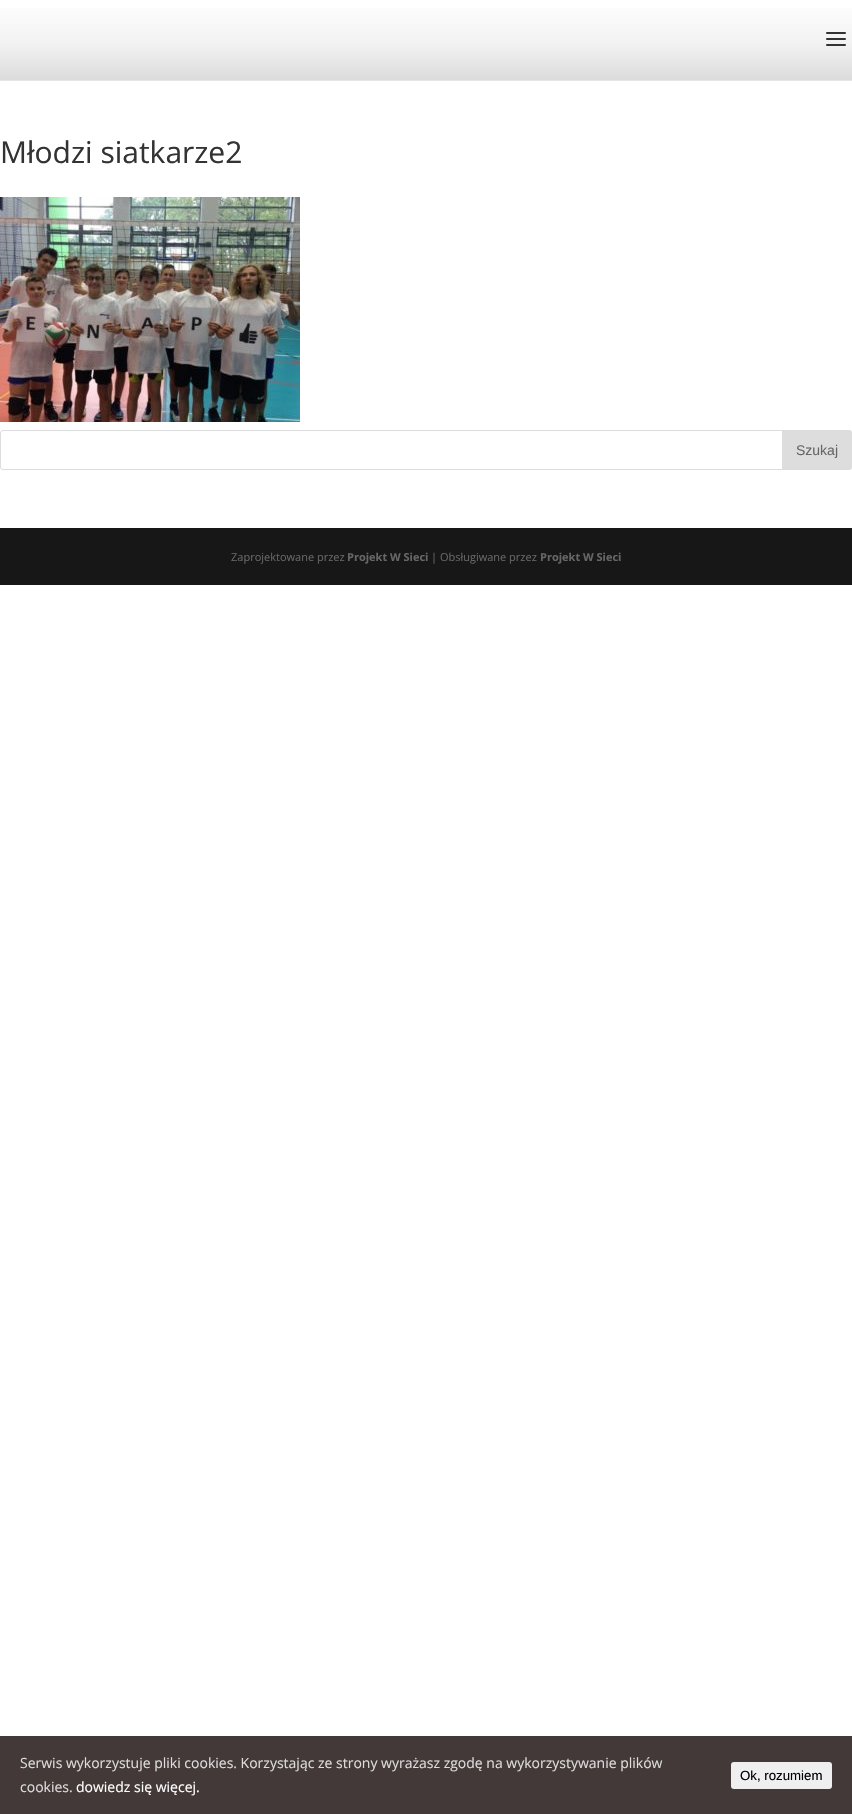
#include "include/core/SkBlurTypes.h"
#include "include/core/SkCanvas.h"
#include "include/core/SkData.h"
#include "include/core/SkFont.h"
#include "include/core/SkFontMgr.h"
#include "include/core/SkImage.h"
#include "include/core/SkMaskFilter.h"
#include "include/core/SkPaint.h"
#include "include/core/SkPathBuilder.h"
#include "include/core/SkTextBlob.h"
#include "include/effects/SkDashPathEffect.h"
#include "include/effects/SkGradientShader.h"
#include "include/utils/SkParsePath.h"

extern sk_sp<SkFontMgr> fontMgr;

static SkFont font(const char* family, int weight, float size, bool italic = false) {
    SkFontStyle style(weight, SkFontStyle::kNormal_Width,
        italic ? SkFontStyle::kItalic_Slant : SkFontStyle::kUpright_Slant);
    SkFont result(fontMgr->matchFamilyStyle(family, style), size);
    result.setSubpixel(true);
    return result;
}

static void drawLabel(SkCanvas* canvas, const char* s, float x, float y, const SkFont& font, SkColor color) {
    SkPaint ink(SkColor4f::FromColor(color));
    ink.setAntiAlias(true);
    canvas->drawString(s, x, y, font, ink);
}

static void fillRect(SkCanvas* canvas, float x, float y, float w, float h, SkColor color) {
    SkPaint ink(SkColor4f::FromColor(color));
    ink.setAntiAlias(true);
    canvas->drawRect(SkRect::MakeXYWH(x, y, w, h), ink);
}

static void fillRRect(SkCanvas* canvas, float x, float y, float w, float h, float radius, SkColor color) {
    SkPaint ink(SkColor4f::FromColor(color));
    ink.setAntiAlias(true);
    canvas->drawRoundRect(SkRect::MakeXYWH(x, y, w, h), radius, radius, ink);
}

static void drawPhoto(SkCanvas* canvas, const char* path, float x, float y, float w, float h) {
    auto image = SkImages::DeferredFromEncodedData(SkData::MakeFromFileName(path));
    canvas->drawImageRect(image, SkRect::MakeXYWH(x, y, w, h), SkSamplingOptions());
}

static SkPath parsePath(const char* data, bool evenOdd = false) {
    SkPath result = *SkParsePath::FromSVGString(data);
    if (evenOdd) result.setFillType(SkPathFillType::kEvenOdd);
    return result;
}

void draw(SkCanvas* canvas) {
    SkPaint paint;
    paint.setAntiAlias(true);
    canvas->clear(0xFFFFFFFF);
    fillRect(canvas, 0, 80, 852, 1, 0xFFE6E6E6);
    {
        const SkColor colors[] = {0xFFFFFFFF, 0xFFF2F2F2, 0xFFDBDBDB};
        const float stops[] = {0, 0.55f, 1};
        const SkPoint ends[] = {{426, 0}, {426, 80}};
        paint.setShader(SkGradientShader::MakeLinear(ends, colors, stops, 3, SkTileMode::kClamp));
        paint.setAlpha(255);
    }
    canvas->drawRect(SkRect::MakeXYWH(0, 8, 852, 72), paint);
    drawPhoto(canvas, "assets/img1.png", 826, 32, 20, 14);
    SkFont font1 = font("Open Sans", 400, 30);
    drawLabel(canvas, "Młodzi siatkarze2", 0, 163, font1, 0xFF333333);
    drawPhoto(canvas, "assets/img2.png", 0, 197, 300, 225);
    paint.setStroke(true);
    paint.setStrokeWidth(1);
    paint.setShader(nullptr);
    paint.setColor(0xFFDDDDDD);
    canvas->drawRoundRect(SkRect::MakeXYWH(0.5f, 430.5f, 851, 39), 2.5f, 2.5f, paint);
    paint.setStroke(false);
    canvas->drawPath(parsePath("M782.5 430.5H849C850.5 430.5 851.5 431.5 851.5 433V467C851.5 468.5 850.5 469.5 849 469.5H782.5Z"), paint);
    paint.setStroke(true);
    canvas->drawPath(parsePath("M782.5 430.5H849C850.5 430.5 851.5 431.5 851.5 433V467C851.5 468.5 850.5 469.5 849 469.5H782.5Z"), paint);
    SkFont font2 = font("Liberation Sans", 400, 14);
    drawLabel(canvas, "Szukaj", 796, 455, font2, 0xFF666666);
    fillRect(canvas, 0, 528, 852, 57, 0xFF171717);
    SkFont font3 = font("Open Sans", 400, 11);
    drawLabel(canvas, "Zaprojektowane przez", 231, 561, font3, 0xFF666666);
    SkFont font4 = font("Open Sans", 700, 11);
    drawLabel(canvas, "Projekt W Sieci", 347, 561, font4, 0xFF666666);
    drawLabel(canvas, "| Obsługiwane przez", 431, 561, font3, 0xFF666666);
    drawLabel(canvas, "Projekt W Sieci", 540, 561, font4, 0xFF666666);
    fillRect(canvas, 0, 1736, 852, 78, 0xFF443939);
    SkFont font5 = font("Open Sans", 400, 14);
    drawLabel(canvas, "Serwis wykorzystuje pliki cookies. Korzystając ze strony wyrażasz zgodę na wykorzystywanie plików", 20, 1768, font5, 0xFFDDDDDD);
    drawLabel(canvas, "cookies.", 20, 1792, font5, 0xFFDDDDDD);
    drawLabel(canvas, "dowiedz się więcej.", 76, 1792, font5, 0xFFFFFFFF);
    fillRRect(canvas, 731, 1762, 101, 27, 3, 0xFFEFEFEF);
    SkFont font6 = font("Liberation Sans", 400, 13.25f);
    drawLabel(canvas, "Ok, rozumiem", 740, 1780, font6, 0xFF000000);
}
